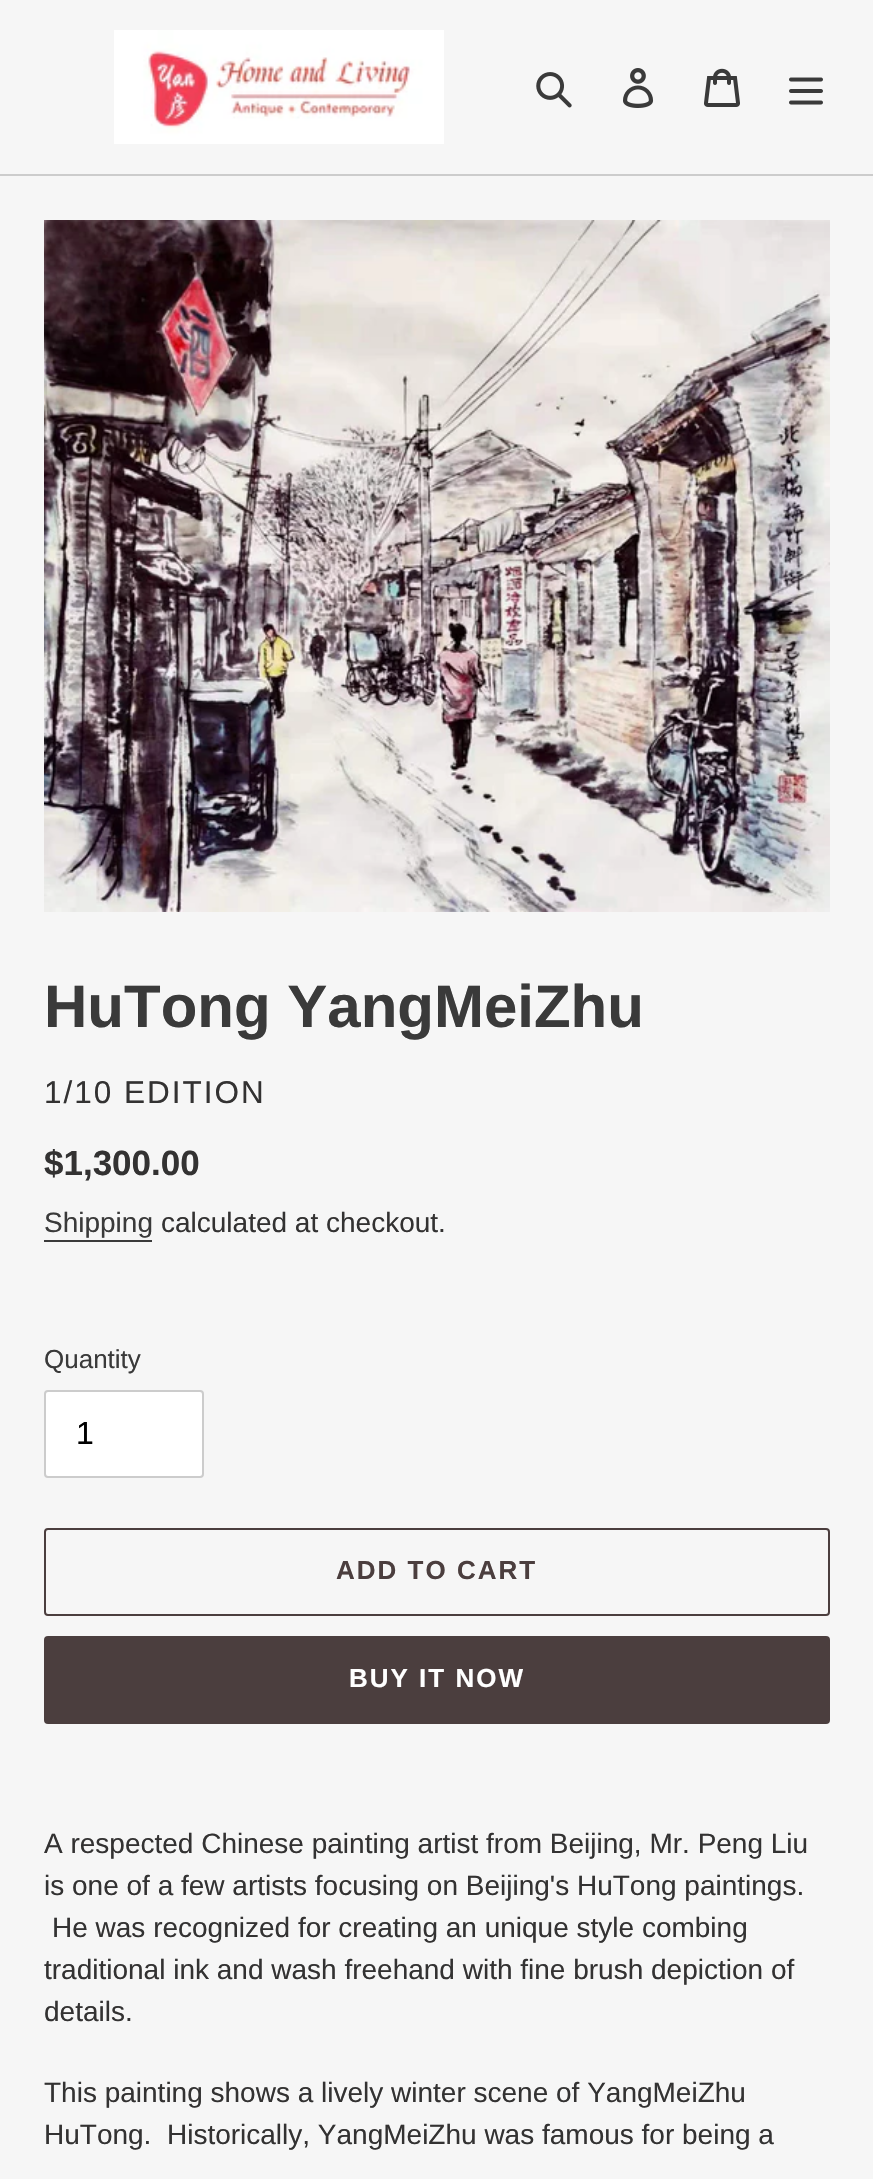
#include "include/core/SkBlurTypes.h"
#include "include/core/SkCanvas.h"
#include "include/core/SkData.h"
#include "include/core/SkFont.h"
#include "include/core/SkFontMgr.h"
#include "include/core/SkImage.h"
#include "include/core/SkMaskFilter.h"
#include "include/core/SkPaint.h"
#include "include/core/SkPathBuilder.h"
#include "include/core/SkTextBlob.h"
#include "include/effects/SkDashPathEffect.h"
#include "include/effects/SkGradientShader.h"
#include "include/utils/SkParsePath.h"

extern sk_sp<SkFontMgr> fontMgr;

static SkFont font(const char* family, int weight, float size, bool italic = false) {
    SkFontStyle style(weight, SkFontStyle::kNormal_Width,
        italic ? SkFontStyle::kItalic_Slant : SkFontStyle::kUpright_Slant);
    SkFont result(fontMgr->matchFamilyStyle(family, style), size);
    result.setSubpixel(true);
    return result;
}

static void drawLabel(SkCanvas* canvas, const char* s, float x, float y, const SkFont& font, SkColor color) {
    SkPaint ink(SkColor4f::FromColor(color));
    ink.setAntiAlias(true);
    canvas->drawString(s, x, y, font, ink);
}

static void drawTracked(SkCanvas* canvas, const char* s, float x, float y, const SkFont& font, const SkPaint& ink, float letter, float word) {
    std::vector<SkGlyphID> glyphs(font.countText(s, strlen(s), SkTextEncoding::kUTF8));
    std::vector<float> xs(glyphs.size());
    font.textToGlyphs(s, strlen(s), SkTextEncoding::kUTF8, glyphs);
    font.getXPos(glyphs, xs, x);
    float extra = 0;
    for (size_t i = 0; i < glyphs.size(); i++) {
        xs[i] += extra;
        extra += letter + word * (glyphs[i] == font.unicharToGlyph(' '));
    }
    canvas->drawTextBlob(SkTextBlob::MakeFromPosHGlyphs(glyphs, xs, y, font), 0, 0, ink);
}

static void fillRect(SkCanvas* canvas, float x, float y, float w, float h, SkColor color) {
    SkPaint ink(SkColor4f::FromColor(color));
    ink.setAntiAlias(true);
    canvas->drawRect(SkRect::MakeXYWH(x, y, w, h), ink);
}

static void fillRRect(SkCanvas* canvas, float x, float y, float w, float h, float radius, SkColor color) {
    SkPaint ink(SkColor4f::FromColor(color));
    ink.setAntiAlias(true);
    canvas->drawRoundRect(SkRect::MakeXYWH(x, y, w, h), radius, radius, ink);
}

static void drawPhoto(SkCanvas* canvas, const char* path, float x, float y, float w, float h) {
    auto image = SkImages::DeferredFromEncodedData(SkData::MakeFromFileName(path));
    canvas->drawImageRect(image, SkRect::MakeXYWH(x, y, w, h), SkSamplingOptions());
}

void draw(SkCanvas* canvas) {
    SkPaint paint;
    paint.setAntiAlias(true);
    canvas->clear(0xFFF6F6F6);
    fillRect(canvas, 0, 174, 873, 2, 0xFFCCCCCC);
    drawPhoto(canvas, "assets/img1.png", 114, 30, 330, 114);
    drawPhoto(canvas, "assets/img2.png", 536, 72, 36, 36);
    drawPhoto(canvas, "assets/img3.png", 623, 68, 31, 40);
    drawPhoto(canvas, "assets/img4.png", 704, 68, 36, 39);
    drawPhoto(canvas, "assets/img5.png", 789, 77, 34, 28);
    drawPhoto(canvas, "assets/img6.png", 44, 220, 786, 692);
    SkFont font1 = font("Arimo", 700, 60);
    drawLabel(canvas, "HuTong YangMeiZhu", 44, 1027, font1, 0xFF3A3A3A);
    SkFont font2 = font("Liberation Sans", 400, 31.5f);
    paint.setColor(0xFF333232);
    drawTracked(canvas, "1/10 EDITION", 44, 1103, font2, paint, 2, 0);
    SkFont font3 = font("Liberation Sans", 700, 35);
    drawLabel(canvas, "$1,300.00", 44, 1175, font3, 0xFF333232);
    SkFont font4 = font("Liberation Sans", 400, 28);
    drawLabel(canvas, "Shipping", 44, 1232, font4, 0xFF3A3A3A);
    fillRect(canvas, 44, 1240, 108, 2, 0xFF3A3A3A);
    drawLabel(canvas, "calculated at checkout.", 161, 1232, font4, 0xFF333232);
    SkFont font5 = font("Liberation Sans", 400, 26);
    drawLabel(canvas, "Quantity", 44, 1368, font5, 0xFF3A3A3A);
    paint.setColor(0xFFFFFFFF);
    canvas->drawRoundRect(SkRect::MakeXYWH(45, 1391, 158, 86), 3, 3, paint);
    paint.setStroke(true);
    paint.setStrokeWidth(2);
    paint.setColor(0xFFCCCCCC);
    canvas->drawRoundRect(SkRect::MakeXYWH(45, 1391, 158, 86), 3, 3, paint);
    SkFont font6 = font("Liberation Sans", 400, 32);
    drawLabel(canvas, "1", 76, 1444, font6, 0xFF000000);
    paint.setColor(0xFF4B3E3E);
    canvas->drawRoundRect(SkRect::MakeXYWH(45, 1529, 784, 86), 3, 3, paint);
    SkFont font7 = font("Arimo", 700, 26);
    paint.setStroke(false);
    drawTracked(canvas, "ADD TO CART", 336, 1579, font7, paint, 2, 0);
    fillRRect(canvas, 44, 1636, 786, 88, 4, 0xFF4B3E3E);
    paint.setColor(0xFFFFFFFF);
    drawTracked(canvas, "BUY IT NOW", 349, 1687, font7, paint, 2, 0);
    drawLabel(canvas, "A respected Chinese painting artist from Beijing, Mr. Peng Liu", 44, 1853, font4, 0xFF333232);
    drawLabel(canvas, "is one of a few artists focusing on Beijing's HuTong paintings.", 44, 1895, font4, 0xFF333232);
    drawLabel(canvas, "He was recognized for creating an unique style combing", 52, 1937, font4, 0xFF333232);
    drawLabel(canvas, "traditional ink and wash freehand with fine brush depiction of", 44, 1979, font4, 0xFF333232);
    drawLabel(canvas, "details.", 44, 2021, font4, 0xFF333232);
    drawLabel(canvas, "This painting shows a lively winter scene of YangMeiZhu", 44, 2102, font4, 0xFF333232);
    drawLabel(canvas, "HuTong.  Historically, YangMeiZhu was famous for being a", 44, 2144, font4, 0xFF333232);
}
